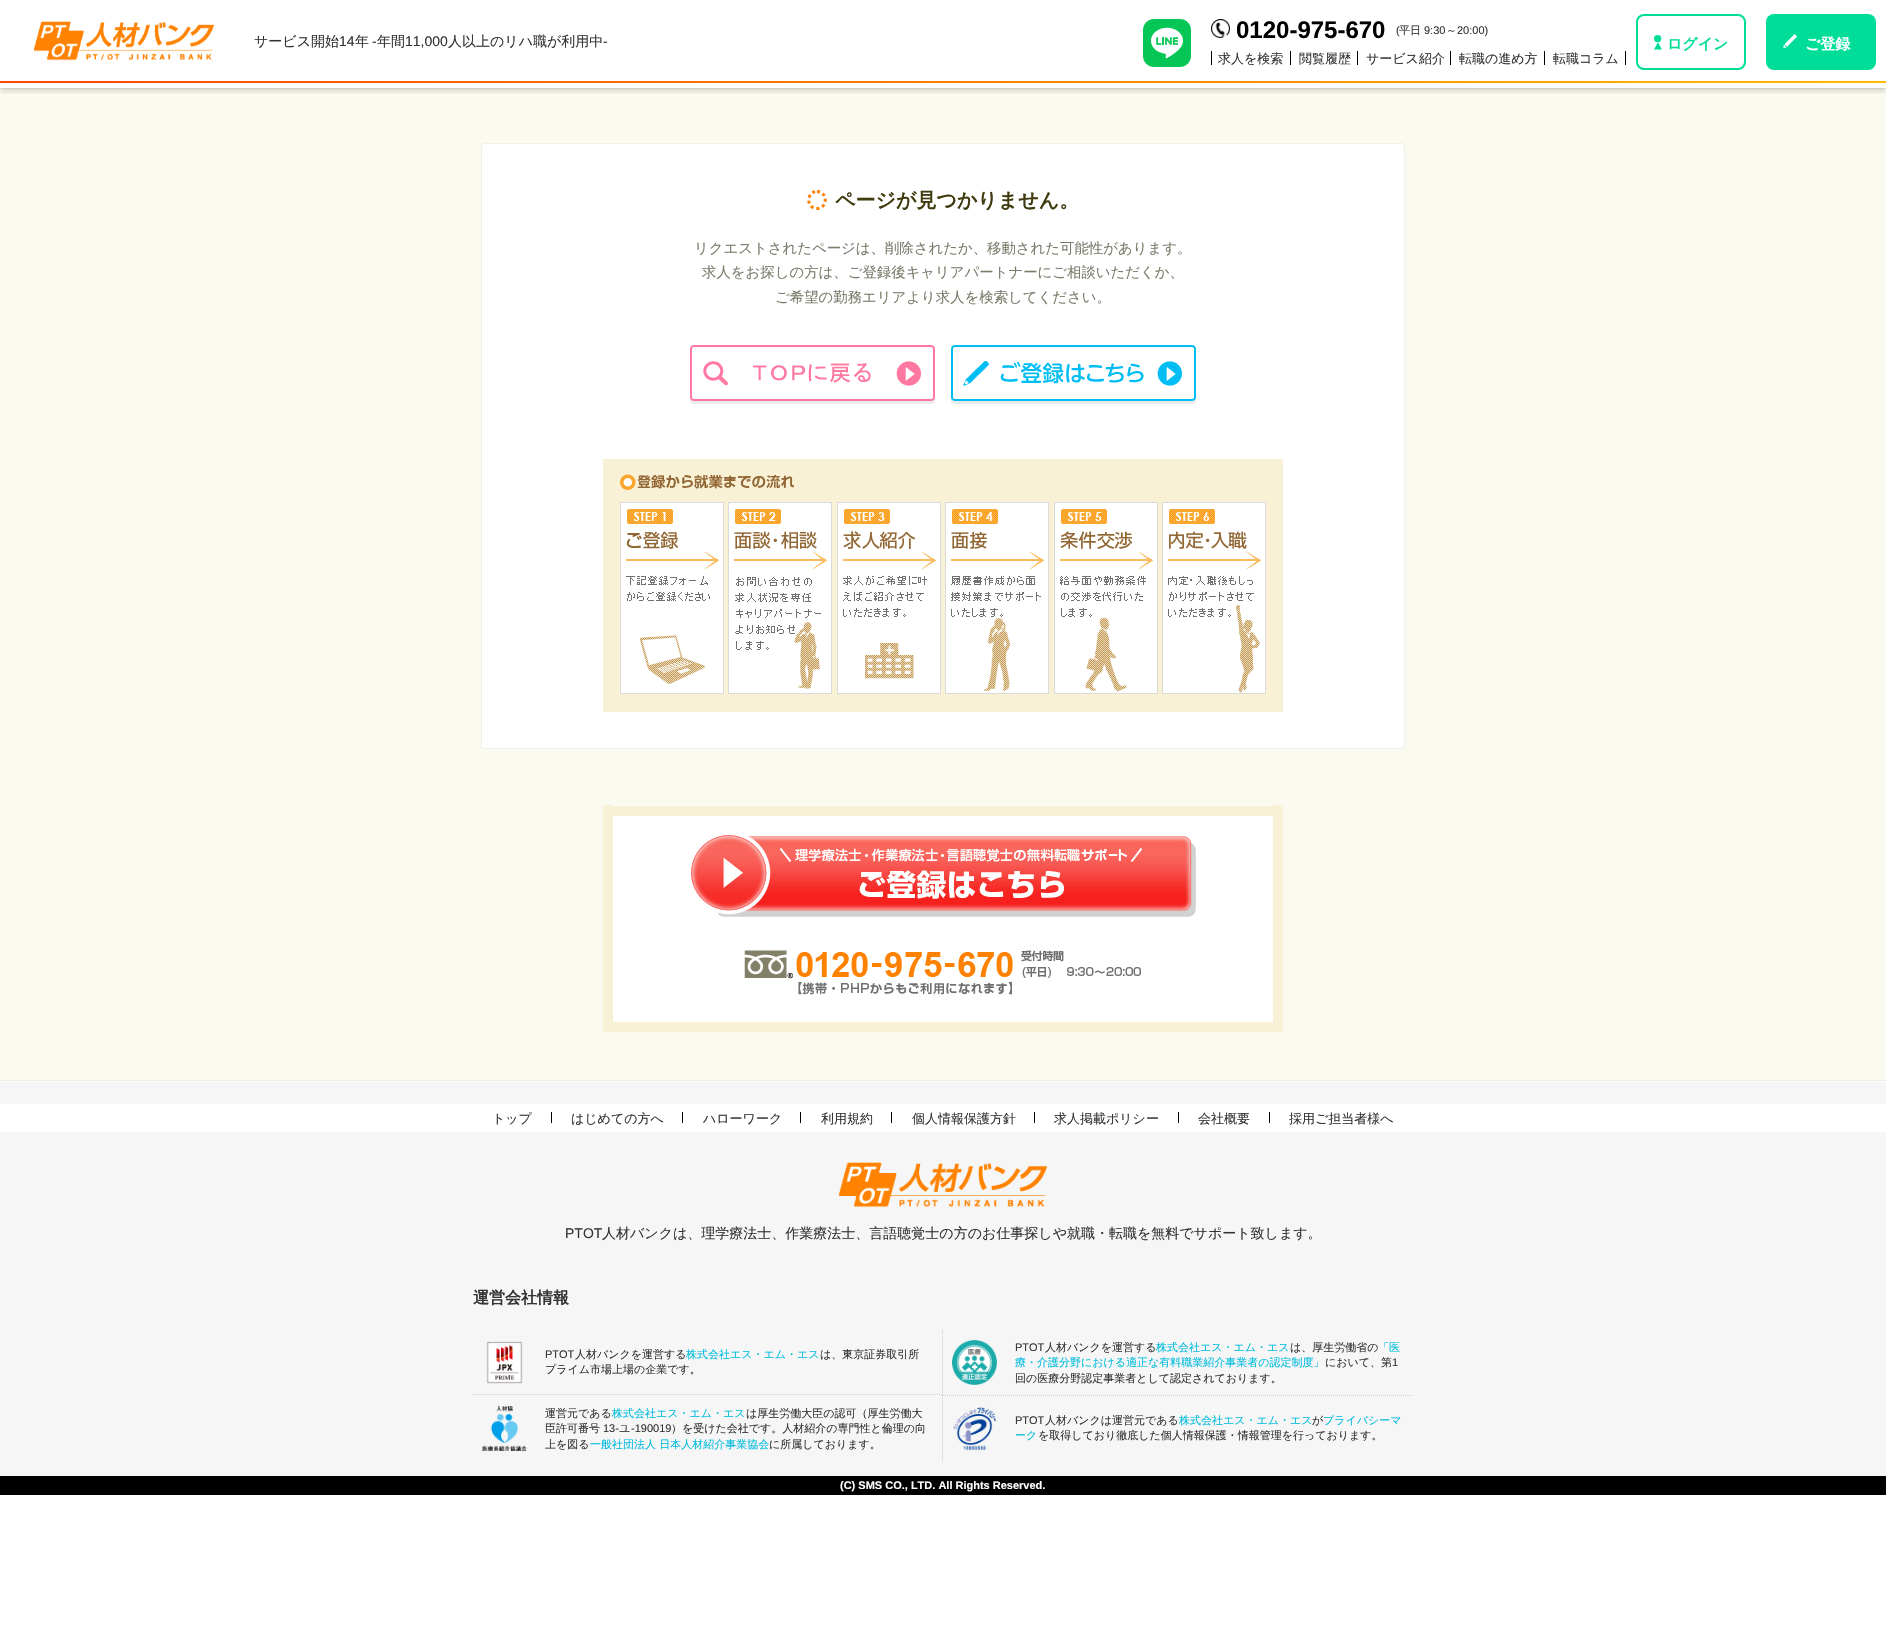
#include "include/core/SkBlurTypes.h"
#include "include/core/SkCanvas.h"
#include "include/core/SkData.h"
#include "include/core/SkFont.h"
#include "include/core/SkFontMgr.h"
#include "include/core/SkImage.h"
#include "include/core/SkMaskFilter.h"
#include "include/core/SkPaint.h"
#include "include/core/SkPathBuilder.h"
#include "include/core/SkTextBlob.h"
#include "include/effects/SkDashPathEffect.h"
#include "include/effects/SkGradientShader.h"
#include "include/utils/SkParsePath.h"

extern sk_sp<SkFontMgr> fontMgr;

static SkFont font(const char* family, int weight, float size, bool italic = false) {
    SkFontStyle style(weight, SkFontStyle::kNormal_Width,
        italic ? SkFontStyle::kItalic_Slant : SkFontStyle::kUpright_Slant);
    SkFont result(fontMgr->matchFamilyStyle(family, style), size);
    result.setSubpixel(true);
    return result;
}

static void drawLabel(SkCanvas* canvas, const char* s, float x, float y, const SkFont& font, SkColor color) {
    SkPaint ink(SkColor4f::FromColor(color));
    ink.setAntiAlias(true);
    canvas->drawString(s, x, y, font, ink);
}

static void fillRect(SkCanvas* canvas, float x, float y, float w, float h, SkColor color) {
    SkPaint ink(SkColor4f::FromColor(color));
    ink.setAntiAlias(true);
    canvas->drawRect(SkRect::MakeXYWH(x, y, w, h), ink);
}

static void fillRRect(SkCanvas* canvas, float x, float y, float w, float h, float radius, SkColor color) {
    SkPaint ink(SkColor4f::FromColor(color));
    ink.setAntiAlias(true);
    canvas->drawRoundRect(SkRect::MakeXYWH(x, y, w, h), radius, radius, ink);
}

static void drawPhoto(SkCanvas* canvas, const char* path, float x, float y, float w, float h) {
    auto image = SkImages::DeferredFromEncodedData(SkData::MakeFromFileName(path));
    canvas->drawImageRect(image, SkRect::MakeXYWH(x, y, w, h), SkSamplingOptions());
}

static SkPath parsePath(const char* data, bool evenOdd = false) {
    SkPath result = *SkParsePath::FromSVGString(data);
    if (evenOdd) result.setFillType(SkPathFillType::kEvenOdd);
    return result;
}

void draw(SkCanvas* canvas) {
    SkPaint paint;
    paint.setAntiAlias(true);
    canvas->clear(0xFFFFFFFF);
    fillRect(canvas, 0, 89, 1886, 991, 0xFFFAFAF0);
    fillRect(canvas, 0, 88, 1886, 1, 0xFFEEEDE2);
    canvas->save();
    canvas->clipRect(SkRect::MakeXYWH(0, 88, 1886, 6));
    paint.setColor(0x29000000);
    paint.setMaskFilter(SkMaskFilter::MakeBlur(kNormal_SkBlurStyle, 3));
    canvas->drawRect(SkRect::MakeXYWH(0, 3, 1886, 88), paint);
    paint.setMaskFilter(nullptr);
    canvas->restore();
    drawPhoto(canvas, "assets/img1.png", 0, 81, 1886, 2);
    drawPhoto(canvas, "assets/img2.png", 34, 21, 180, 40);
    SkFont font1 = font("WenQuanYi Zen Hei", 500, 14);
    drawLabel(canvas, "サービス開始", 254, 46, font1, 0xFF333333);
    SkFont font2 = font("Liberation Sans", 400, 14);
    drawLabel(canvas, "14", 339, 46, font2, 0xFF333333);
    drawLabel(canvas, "年", 355, 46, font1, 0xFF333333);
    drawLabel(canvas, "-", 372, 46, font2, 0xFF333333);
    drawLabel(canvas, "年間", 377, 46, font1, 0xFF333333);
    drawLabel(canvas, "11,000", 405, 46, font2, 0xFF333333);
    drawLabel(canvas, "人以上のリハ職が利用中", 448, 46, font1, 0xFF333333);
    drawLabel(canvas, "-", 603, 46, font2, 0xFF333333);
    drawPhoto(canvas, "assets/img3.png", 1143, 19, 48, 48);
    drawPhoto(canvas, "assets/img4.png", 1211, 19, 19, 19);
    SkFont font3 = font("Liberation Sans", 700, 24);
    drawLabel(canvas, "0120-975-670", 1236, 38, font3, 0xFF000000);
    SkFont font4 = font("Liberation Sans", 400, 11);
    drawLabel(canvas, "(", 1396, 34, font4, 0xFF333333);
    SkFont font5 = font("WenQuanYi Zen Hei", 500, 11);
    drawLabel(canvas, "平日", 1399, 34, font5, 0xFF333333);
    drawLabel(canvas, "9:30", 1424, 34, font4, 0xFF333333);
    drawLabel(canvas, "～", 1446, 34, font5, 0xFF333333);
    drawLabel(canvas, "20:00)", 1457, 34, font4, 0xFF333333);
    fillRect(canvas, 1211, 51, 1, 14, 0xFF000000);
    SkFont font6 = font("WenQuanYi Zen Hei", 500, 13);
    drawLabel(canvas, "求人を検索", 1218, 63, font6, 0xFF333333);
    fillRect(canvas, 1290, 51, 1, 14, 0xFF000000);
    drawLabel(canvas, "閲覧履歴", 1299, 63, font6, 0xFF333333);
    fillRect(canvas, 1357, 51, 1, 14, 0xFF000000);
    drawLabel(canvas, "サービス紹介", 1366, 63, font6, 0xFF333333);
    fillRect(canvas, 1450, 51, 1, 14, 0xFF000000);
    drawLabel(canvas, "転職の進め方", 1459, 63, font6, 0xFF333333);
    fillRect(canvas, 1544, 51, 1, 14, 0xFF000000);
    drawLabel(canvas, "転職コラム", 1553, 63, font6, 0xFF333333);
    fillRect(canvas, 1625, 51, 1, 14, 0xFF000000);
    drawPhoto(canvas, "assets/img5.png", 1654, 35, 8, 15);
    paint.setStroke(true);
    paint.setStrokeWidth(2);
    paint.setColor(0xFF00DD99);
    canvas->drawRoundRect(SkRect::MakeXYWH(1637, 15, 108, 54), 7, 7, paint);
    SkFont font7 = font("WenQuanYi Zen Hei", 700, 15);
    drawLabel(canvas, "ログイン", 1667, 49, font7, 0xFF00DD99);
    fillRRect(canvas, 1766, 14, 110, 56, 8, 0xFF00DD99);
    drawPhoto(canvas, "assets/img6.png", 1783, 34, 14, 14);
    drawLabel(canvas, "ご登録", 1805, 49, font7, 0xFFFFFFFF);
    fillRect(canvas, 0, 1080, 1886, 1, 0xFFEEEDE2);
    paint.setStroke(false);
    paint.setColor(0xFFFFFFFF);
    canvas->drawRoundRect(SkRect::MakeXYWH(481.5f, 143.5f, 923, 605), 2.5f, 2.5f, paint);
    paint.setStroke(true);
    paint.setStrokeWidth(1);
    paint.setColor(0xFFF1F1E3);
    canvas->drawRoundRect(SkRect::MakeXYWH(481.5f, 143.5f, 923, 605), 2.5f, 2.5f, paint);
    paint.setStrokeWidth(3);
    paint.setColor(0xFFFF8000);
    paint.setPathEffect(SkDashPathEffect::Make({{3, 3}}, 0));
    canvas->drawPath(parsePath("M817 191.5C828 191.5 828 208.5 817 208.5C806 208.5 806 191.5 817 191.5Z"), paint);
    paint.setPathEffect(nullptr);
    SkFont font8 = font("WenQuanYi Zen Hei", 700, 20);
    drawLabel(canvas, "ページが見つかりません。", 835, 207, font8, 0xFF403B0F);
    SkFont font9 = font("WenQuanYi Zen Hei", 500, 14.4f);
    drawLabel(canvas, "リクエストされたページは、削除されたか、移動された可能性があります。", 694, 253, font9, 0xFF7C7A6A);
    drawLabel(canvas, "求人をお探しの方は、ご登録後キャリアパートナーにご相談いただくか、", 702, 277, font9, 0xFF7C7A6A);
    drawLabel(canvas, "ご希望の勤務エリアより求人を検索してください。", 775, 302, font9, 0xFF7C7A6A);
    drawPhoto(canvas, "assets/img7.png", 690, 345, 245, 59);
    drawPhoto(canvas, "assets/img8.png", 951, 345, 245, 59);
    drawPhoto(canvas, "assets/img9.png", 603, 459, 680, 253);
    drawPhoto(canvas, "assets/img10.png", 603, 805, 680, 227);
    drawPhoto(canvas, "assets/img11.png", 613, 806, 660, 10);
    drawPhoto(canvas, "assets/img12.png", 691, 835, 505, 82);
    drawPhoto(canvas, "assets/img13.png", 744, 946, 397, 49);
    fillRect(canvas, 0, 1082, 1886, 394, 0xFFF6F6F6);
    fillRect(canvas, 0, 1104, 1886, 28, 0xFFFFFFFF);
    drawLabel(canvas, "トップ", 492, 1123, font6, 0xFF333333);
    fillRect(canvas, 551, 1112, 1, 11, 0xFF000000);
    drawLabel(canvas, "はじめての方へ", 571, 1123, font6, 0xFF333333);
    fillRect(canvas, 682, 1112, 1, 11, 0xFF000000);
    drawLabel(canvas, "ハローワーク", 703, 1123, font6, 0xFF333333);
    fillRect(canvas, 800, 1112, 1, 11, 0xFF000000);
    drawLabel(canvas, "利用規約", 821, 1123, font6, 0xFF333333);
    fillRect(canvas, 891, 1112, 1, 11, 0xFF000000);
    drawLabel(canvas, "個人情報保護方針", 912, 1123, font6, 0xFF333333);
    fillRect(canvas, 1034, 1112, 1, 11, 0xFF000000);
    drawLabel(canvas, "求人掲載ポリシー", 1054, 1123, font6, 0xFF333333);
    fillRect(canvas, 1178, 1112, 1, 11, 0xFF000000);
    drawLabel(canvas, "会社概要", 1198, 1123, font6, 0xFF333333);
    fillRect(canvas, 1269, 1112, 1, 11, 0xFF000000);
    drawLabel(canvas, "採用ご担当者様へ", 1289, 1123, font6, 0xFF333333);
    drawPhoto(canvas, "assets/img14.png", 839, 1162, 208, 46);
    drawLabel(canvas, "PTOT", 565, 1238, font2, 0xFF333333);
    drawLabel(canvas, "人材バンクは、理学療法士、作業療法士、言語聴覚士の方のお仕事探しや就職・転職を無料でサポート致します。", 602, 1238, font1, 0xFF333333);
    SkFont font10 = font("WenQuanYi Zen Hei", 700, 16);
    drawLabel(canvas, "運営会社情報", 473, 1303, font10, 0xFF333333);
    paint.setStrokeWidth(1);
    paint.setColor(0xFFCCCCCC);
    paint.setPathEffect(SkDashPathEffect::Make({{1, 1}}, 0));
    canvas->drawPath(parsePath("M942.5 1330V1395"), paint);
    paint.setPathEffect(nullptr);
    paint.setPathEffect(SkDashPathEffect::Make({{1, 1}}, 0));
    canvas->drawPath(parsePath("M473 1394.5H943"), paint);
    paint.setPathEffect(nullptr);
    drawPhoto(canvas, "assets/img15.png", 486, 1341, 37, 43);
    drawLabel(canvas, "PTOT", 545, 1358, font4, 0xFF333333);
    drawLabel(canvas, "人材バンクを運営する", 575, 1358, font5, 0xFF333333);
    drawLabel(canvas, "株式会社エス・エム・エス", 686, 1358, font5, 0xFF00BBDD);
    drawLabel(canvas, "は、東京証券取引所", 820, 1358, font5, 0xFF333333);
    drawLabel(canvas, "プライム市場上場の企業です。", 545, 1373, font5, 0xFF333333);
    paint.setPathEffect(SkDashPathEffect::Make({{1, 1}}, 0));
    canvas->drawPath(parsePath("M943 1395.5H1413"), paint);
    paint.setPathEffect(nullptr);
    drawPhoto(canvas, "assets/img16.png", 952, 1340, 45, 45);
    drawLabel(canvas, "PTOT", 1015, 1351, font4, 0xFF333333);
    drawLabel(canvas, "人材バンクを運営する", 1045, 1351, font5, 0xFF333333);
    drawLabel(canvas, "株式会社エス・エム・エス", 1156, 1351, font5, 0xFF00BBDD);
    drawLabel(canvas, "は、厚生労働省の", 1290, 1351, font5, 0xFF333333);
    drawLabel(canvas, "「医", 1378, 1351, font5, 0xFF00BBDD);
    drawLabel(canvas, "療・介護分野における適正な有料職業紹介事業者の認定制度」", 1015, 1366, font5, 0xFF00BBDD);
    drawLabel(canvas, "において、第", 1325, 1366, font5, 0xFF333333);
    drawLabel(canvas, "1", 1392, 1366, font4, 0xFF333333);
    drawLabel(canvas, "回の医療分野認定事業者として認定されております。", 1015, 1382, font5, 0xFF333333);
    paint.setPathEffect(SkDashPathEffect::Make({{1, 1}}, 0));
    canvas->drawPath(parsePath("M942.5 1396V1461"), paint);
    paint.setPathEffect(nullptr);
    drawPhoto(canvas, "assets/img17.png", 482, 1406, 45, 45);
    drawLabel(canvas, "運営元である", 545, 1417, font5, 0xFF333333);
    drawLabel(canvas, "株式会社エス・エム・エス", 612, 1417, font5, 0xFF00BBDD);
    drawLabel(canvas, "は厚生労働大臣の認可（厚生労働大", 746, 1417, font5, 0xFF333333);
    drawLabel(canvas, "臣許可番号", 545, 1432, font5, 0xFF333333);
    drawLabel(canvas, "13-", 603, 1432, font4, 0xFF333333);
    drawLabel(canvas, "ユ", 619, 1432, font5, 0xFF333333);
    drawLabel(canvas, "-190019", 631, 1432, font4, 0xFF333333);
    drawLabel(canvas, "）を受けた会社です。人材紹介の専門性と倫理の向", 671, 1432, font5, 0xFF333333);
    drawLabel(canvas, "上を図る", 545, 1448, font5, 0xFF333333);
    drawLabel(canvas, "一般社団法人 日本人材紹介事業協会", 590, 1448, font5, 0xFF00BBDD);
    drawLabel(canvas, "に所属しております。", 769, 1448, font5, 0xFF333333);
    drawPhoto(canvas, "assets/img18.png", 953, 1407, 44, 44);
    drawLabel(canvas, "PTOT", 1015, 1424, font4, 0xFF333333);
    drawLabel(canvas, "人材バンクは運営元である", 1045, 1424, font5, 0xFF333333);
    drawLabel(canvas, "株式会社エス・エム・エス", 1179, 1424, font5, 0xFF00BBDD);
    drawLabel(canvas, "が", 1312, 1424, font5, 0xFF333333);
    drawLabel(canvas, "プライバシーマ", 1323, 1424, font5, 0xFF00BBDD);
    drawLabel(canvas, "ーク", 1015, 1439, font5, 0xFF00BBDD);
    drawLabel(canvas, "を取得しており徹底した個人情報保護・情報管理を行っております。", 1038, 1439, font5, 0xFF333333);
    fillRect(canvas, 0, 1476, 1886, 19, 0xFF000000);
    SkFont font11 = font("Liberation Sans", 700, 11);
    drawLabel(canvas, "(C) SMS CO., LTD. All Rights Reserved.", 840, 1489, font11, 0xFFFFFFFF);
}
